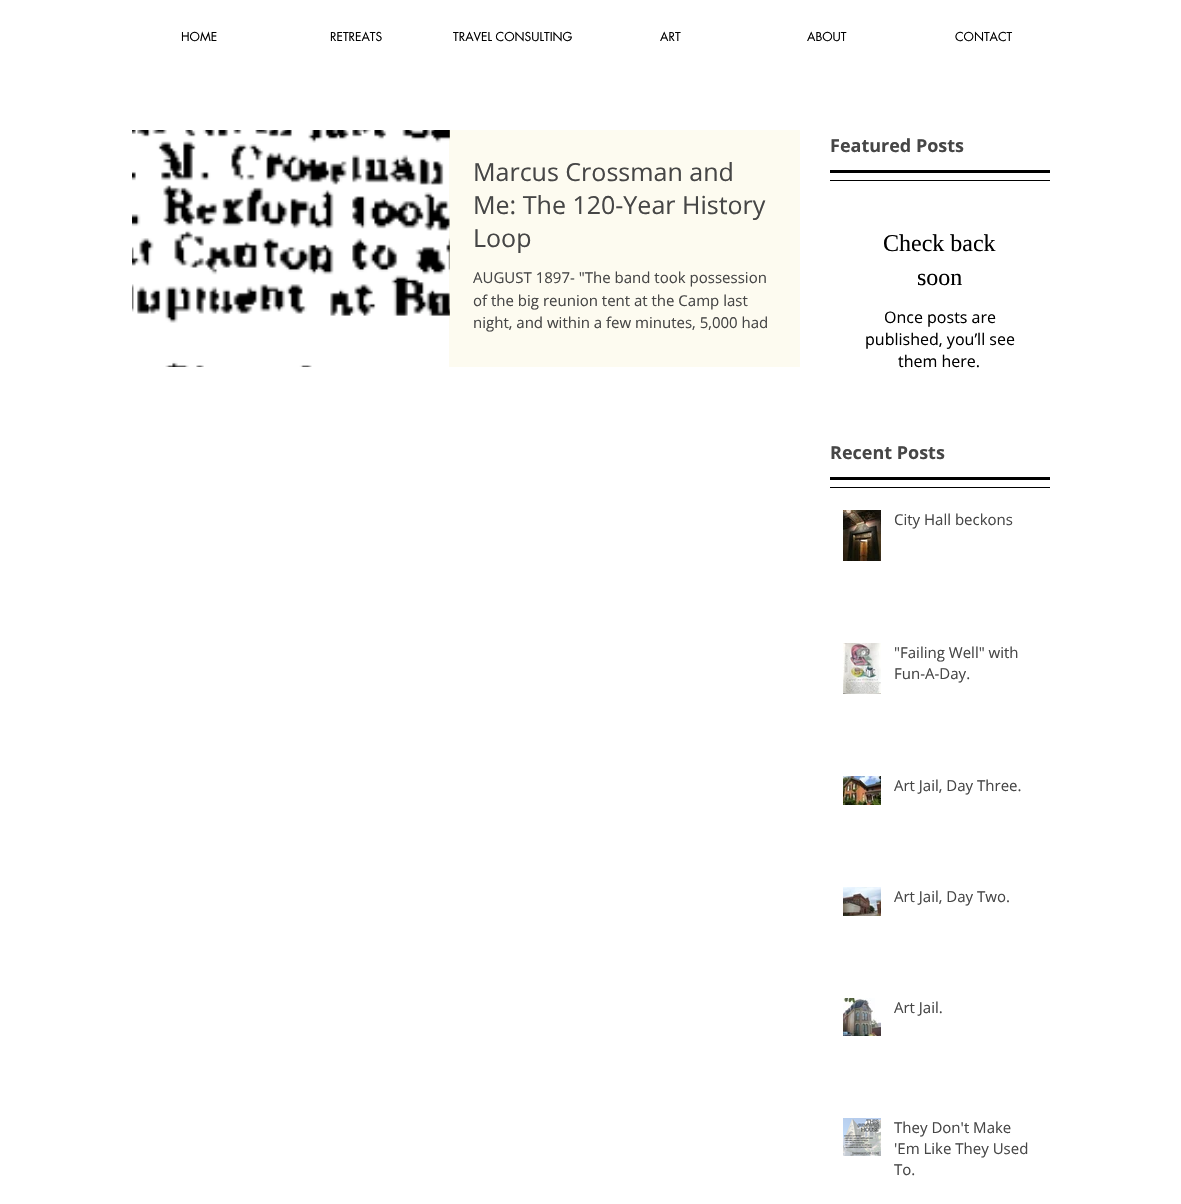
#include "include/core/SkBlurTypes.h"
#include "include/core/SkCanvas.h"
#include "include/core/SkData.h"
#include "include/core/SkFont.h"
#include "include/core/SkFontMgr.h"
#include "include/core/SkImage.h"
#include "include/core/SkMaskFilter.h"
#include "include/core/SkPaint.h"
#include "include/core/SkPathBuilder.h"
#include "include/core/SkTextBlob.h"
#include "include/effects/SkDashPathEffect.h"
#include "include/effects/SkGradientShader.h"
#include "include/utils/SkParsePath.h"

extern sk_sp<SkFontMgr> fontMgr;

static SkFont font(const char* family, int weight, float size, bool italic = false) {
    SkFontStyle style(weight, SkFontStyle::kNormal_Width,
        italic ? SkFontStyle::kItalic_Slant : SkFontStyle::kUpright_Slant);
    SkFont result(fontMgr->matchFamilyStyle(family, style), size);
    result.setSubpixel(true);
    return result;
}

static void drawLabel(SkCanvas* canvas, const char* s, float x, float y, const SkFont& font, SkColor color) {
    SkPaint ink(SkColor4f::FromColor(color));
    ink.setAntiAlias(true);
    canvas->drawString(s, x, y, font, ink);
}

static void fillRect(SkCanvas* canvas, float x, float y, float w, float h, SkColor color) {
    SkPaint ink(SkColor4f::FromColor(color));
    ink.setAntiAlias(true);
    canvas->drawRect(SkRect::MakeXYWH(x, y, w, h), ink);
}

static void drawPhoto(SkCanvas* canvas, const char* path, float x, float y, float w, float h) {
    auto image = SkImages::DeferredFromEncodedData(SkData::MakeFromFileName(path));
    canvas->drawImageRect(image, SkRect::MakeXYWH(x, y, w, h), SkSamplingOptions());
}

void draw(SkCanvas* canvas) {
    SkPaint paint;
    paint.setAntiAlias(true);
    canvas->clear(0xFFFFFFFF);
    SkFont font1 = font("futura", 400, 12);
    drawLabel(canvas, "HOME", 181, 41, font1, 0xFF000000);
    drawLabel(canvas, "RETREATS", 330, 41, font1, 0xFF000000);
    drawLabel(canvas, "TRAVEL CONSULTING", 453, 41, font1, 0xFF000000);
    drawLabel(canvas, "ART", 660, 41, font1, 0xFF000000);
    drawLabel(canvas, "ABOUT", 807, 41, font1, 0xFF000000);
    drawLabel(canvas, "CONTACT", 955, 41, font1, 0xFF000000);
    SkFont font2 = font("Open Sans", 700, 18);
    drawLabel(canvas, "Featured Posts", 830, 152, font2, 0xFF464646);
    drawPhoto(canvas, "assets/img1.png", 132, 130, 318, 237);
    fillRect(canvas, 449, 130, 351, 237, 0x33F7EAB3);
    SkFont font3 = font("Open Sans", 400, 25);
    drawLabel(canvas, "Marcus Crossman and", 473, 181, font3, 0xFF464646);
    drawLabel(canvas, "Me: The 120-Year History", 473, 214, font3, 0xFF464646);
    drawLabel(canvas, "Loop", 473, 247, font3, 0xFF464646);
    SkFont font4 = font("Open Sans", 400, 15);
    drawLabel(canvas, "AUGUST 1897- \"The band took possession", 473, 283, font4, 0xFF464646);
    drawLabel(canvas, "of the big reunion tent at the Camp last", 473, 306, font4, 0xFF464646);
    drawLabel(canvas, "night, and within a few minutes, 5,000 had", 473, 328, font4, 0xFF464646);
    fillRect(canvas, 830, 170, 220, 3, 0xFF000000);
    fillRect(canvas, 830, 180, 220, 1, 0xFF000000);
    SkFont font5 = font("Liberation Serif", 400, 24);
    drawLabel(canvas, "Check back", 883, 251, font5, 0xFF000000);
    drawLabel(canvas, "soon", 917, 285, font5, 0xFF000000);
    SkFont font6 = font("Open Sans", 400, 16);
    drawLabel(canvas, "Once posts are", 884, 323, font6, 0xFF000000);
    drawLabel(canvas, "published, you’ll see", 865, 345, font6, 0xFF000000);
    drawLabel(canvas, "them here.", 898, 367, font6, 0xFF000000);
    drawLabel(canvas, "Recent Posts", 830, 459, font2, 0xFF464646);
    fillRect(canvas, 830, 477, 220, 3, 0xFF000000);
    fillRect(canvas, 830, 487, 220, 1, 0xFF000000);
    drawPhoto(canvas, "assets/img2.png", 843, 510, 38, 51);
    drawLabel(canvas, "City Hall beckons", 894, 525, font4, 0xFF464646);
    drawPhoto(canvas, "assets/img3.png", 843, 643, 38, 51);
    drawLabel(canvas, "\"Failing Well\" with", 894, 658, font4, 0xFF464646);
    drawLabel(canvas, "Fun-A-Day.", 894, 679, font4, 0xFF464646);
    drawPhoto(canvas, "assets/img4.png", 843, 776, 38, 29);
    drawLabel(canvas, "Art Jail, Day Three.", 894, 791, font4, 0xFF464646);
    drawPhoto(canvas, "assets/img5.png", 843, 887, 38, 29);
    drawLabel(canvas, "Art Jail, Day Two.", 894, 902, font4, 0xFF464646);
    drawPhoto(canvas, "assets/img6.png", 843, 998, 38, 38);
    drawLabel(canvas, "Art Jail.", 894, 1013, font4, 0xFF464646);
    drawPhoto(canvas, "assets/img7.png", 843, 1118, 38, 38);
    drawLabel(canvas, "They Don't Make", 894, 1133, font4, 0xFF464646);
    drawLabel(canvas, "'Em Like They Used", 894, 1154, font4, 0xFF464646);
    drawLabel(canvas, "To.", 894, 1175, font4, 0xFF464646);
}
